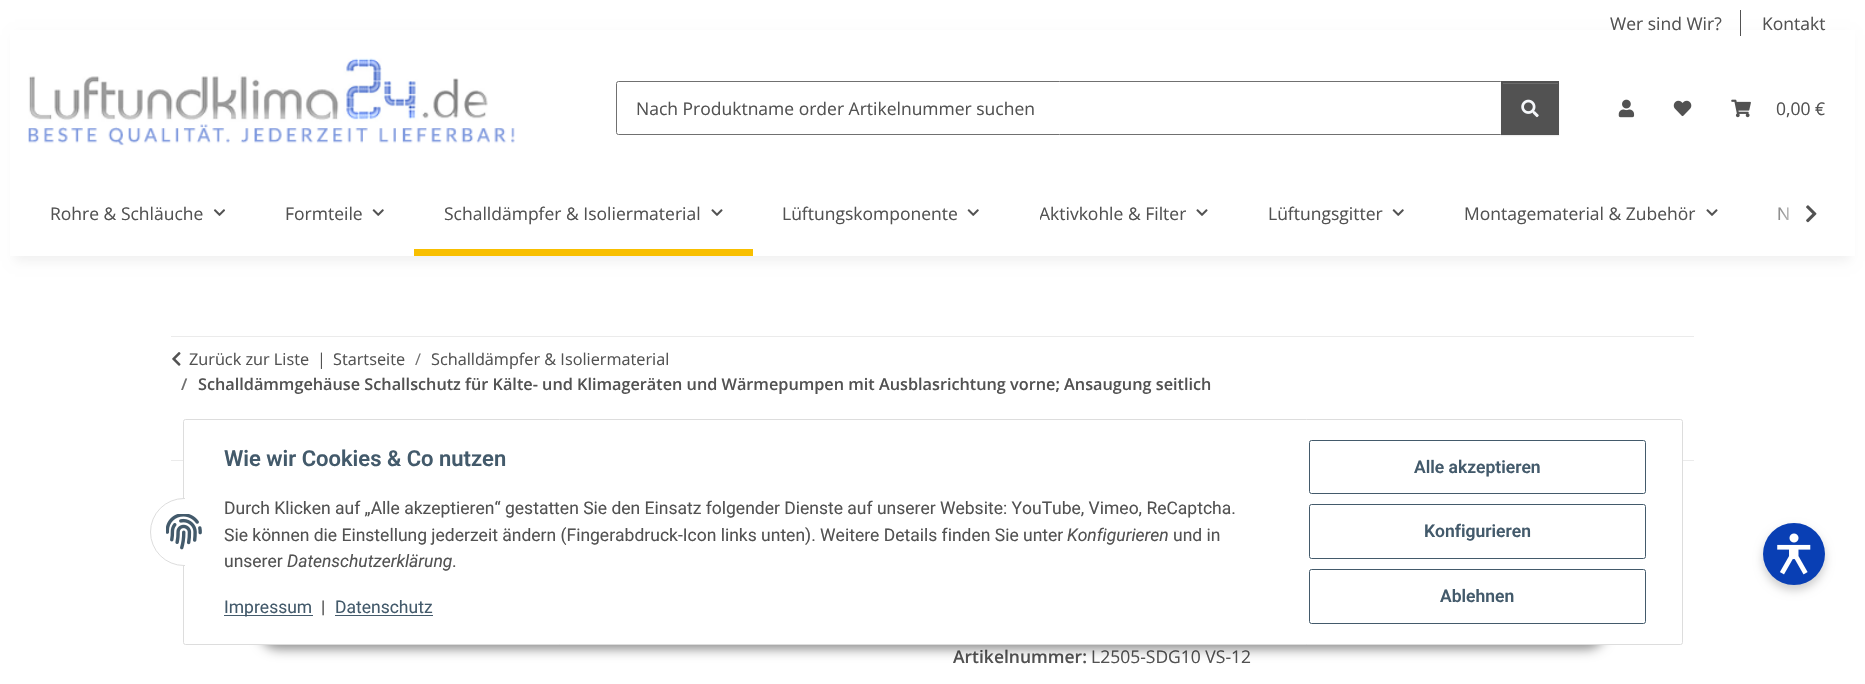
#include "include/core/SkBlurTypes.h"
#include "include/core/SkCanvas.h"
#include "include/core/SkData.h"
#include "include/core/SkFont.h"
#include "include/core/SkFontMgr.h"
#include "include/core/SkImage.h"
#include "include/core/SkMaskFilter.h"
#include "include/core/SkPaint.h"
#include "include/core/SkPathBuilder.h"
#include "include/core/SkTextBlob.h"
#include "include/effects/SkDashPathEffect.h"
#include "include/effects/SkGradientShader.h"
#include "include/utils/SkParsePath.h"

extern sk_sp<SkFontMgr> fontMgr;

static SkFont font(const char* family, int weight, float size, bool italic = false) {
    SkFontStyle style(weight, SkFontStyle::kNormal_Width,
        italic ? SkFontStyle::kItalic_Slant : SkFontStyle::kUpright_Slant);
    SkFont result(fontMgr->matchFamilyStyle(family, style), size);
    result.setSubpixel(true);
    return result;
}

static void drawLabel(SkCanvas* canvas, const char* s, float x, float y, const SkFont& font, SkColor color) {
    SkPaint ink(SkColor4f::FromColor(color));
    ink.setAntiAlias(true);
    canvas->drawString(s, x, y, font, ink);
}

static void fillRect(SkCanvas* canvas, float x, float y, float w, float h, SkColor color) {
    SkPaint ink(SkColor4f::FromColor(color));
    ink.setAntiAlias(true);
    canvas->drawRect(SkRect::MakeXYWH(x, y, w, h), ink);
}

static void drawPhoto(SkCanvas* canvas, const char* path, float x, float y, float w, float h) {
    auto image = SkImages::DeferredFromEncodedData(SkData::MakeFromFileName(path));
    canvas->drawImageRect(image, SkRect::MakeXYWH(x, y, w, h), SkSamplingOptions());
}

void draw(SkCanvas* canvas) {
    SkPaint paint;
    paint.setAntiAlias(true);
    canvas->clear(0xFFFFFFFF);
    paint.setColor(0x0F000000);
    paint.setMaskFilter(SkMaskFilter::MakeBlur(kNormal_SkBlurStyle, 5.5f));
    canvas->drawRect(SkRect::MakeXYWH(15, 35, 1835, 226), paint);
    paint.setMaskFilter(nullptr);
    fillRect(canvas, 10, 30, 1845, 226, 0xFFFFFFFF);
    SkFont font1 = font("Open Sans", 400, 17.5f);
    drawLabel(canvas, "Wer sind Wir?", 1610, 30, font1, 0xFF525252);
    fillRect(canvas, 1740, 10, 1, 26, 0xFF525252);
    drawLabel(canvas, "Kontakt", 1762, 30, font1, 0xFF525252);
    drawPhoto(canvas, "assets/img1.png", 28, 58, 487, 88);
    paint.setStroke(true);
    paint.setStrokeWidth(1);
    paint.setColor(0xFF707070);
    canvas->drawRoundRect(SkRect::MakeXYWH(616.5f, 81.5f, 886, 53), 2, 2, paint);
    drawLabel(canvas, "Nach Produktname order Artikelnummer suchen", 636, 115, font1, 0xFF525252);
    paint.setStroke(false);
    paint.setColor(0x12000000);
    paint.setMaskFilter(SkMaskFilter::MakeBlur(kNormal_SkBlurStyle, 0.5f));
    canvas->drawRect(SkRect::MakeXYWH(1501, 83, 58, 53), paint);
    paint.setMaskFilter(nullptr);
    fillRect(canvas, 1501, 81, 58, 54, 0xFF525252);
    fillRect(canvas, 1503, 83, 55, 1, 0xFF6C6C6C);
    drawPhoto(canvas, "assets/img2.png", 1521, 99, 18, 19);
    drawPhoto(canvas, "assets/img3.png", 1618, 99, 17, 19);
    drawPhoto(canvas, "assets/img4.png", 1673, 100, 19, 17);
    drawPhoto(canvas, "assets/img5.png", 1731, 99, 20, 19);
    drawLabel(canvas, "0,00 €", 1776, 115, font1, 0xFF525252);
    drawLabel(canvas, "Rohre & Schläuche", 50, 220, font1, 0xFF525252);
    drawPhoto(canvas, "assets/img6.png", 213, 209, 12, 7);
    drawLabel(canvas, "Formteile", 285, 220, font1, 0xFF525252);
    drawPhoto(canvas, "assets/img7.png", 372, 209, 12, 7);
    drawLabel(canvas, "Schalldämpfer & Isoliermaterial", 444, 220, font1, 0xFF525252);
    drawPhoto(canvas, "assets/img8.png", 711, 209, 12, 7);
    fillRect(canvas, 414, 249, 339, 7, 0xFFF8BF00);
    drawLabel(canvas, "Lüftungskomponente", 782, 220, font1, 0xFF525252);
    drawPhoto(canvas, "assets/img7.png", 967, 209, 12, 7);
    canvas->save();
    canvas->clipRect(SkRect::MakeXYWH(1040, 200, 146, 26));
    drawLabel(canvas, "Aktivkohle & Filter", 1039, 220, font1, 0xFF525252);
    canvas->restore();
    drawPhoto(canvas, "assets/img8.png", 1196, 209, 12, 7);
    drawLabel(canvas, "Lüftungsgitter", 1268, 220, font1, 0xFF525252);
    drawPhoto(canvas, "assets/img7.png", 1392, 209, 12, 7);
    drawLabel(canvas, "Montagematerial & Zubehör", 1464, 220, font1, 0xFF525252);
    drawPhoto(canvas, "assets/img8.png", 1706, 209, 12, 7);
    drawLabel(canvas, "N", 1777, 220, font1, 0xFF525252);
    {
        const SkColor colors[] = {0x03FFFFFF, 0xFFFFFFFF};
        const float stops[] = {0, 0.7f};
        const SkPoint ends[] = {{1765, 214}, {1825, 214}};
        paint.setShader(SkGradientShader::MakeLinear(ends, colors, stops, 2, SkTileMode::kClamp));
        paint.setAlpha(255);
    }
    canvas->drawRect(SkRect::MakeXYWH(1779, 207, 10, 13), paint);
    drawPhoto(canvas, "assets/img9.png", 1806, 205, 11, 18);
    fillRect(canvas, 171, 336, 1523, 1, 0xFFEBEBEB);
    fillRect(canvas, 171, 460, 1523, 1, 0xFFEBEBEB);
    drawPhoto(canvas, "assets/img10.png", 172, 352, 9, 14);
    SkFont font2 = font("Open Sans", 400, 16.25f);
    drawLabel(canvas, "Zurück zur Liste", 189, 365, font2, 0xFF525252);
    drawLabel(canvas, "|", 317, 365, font2, 0xFF525252);
    drawLabel(canvas, "Startseite", 333, 365, font2, 0xFF525252);
    drawLabel(canvas, "/", 415, 365, font2, 0xFF707070);
    drawLabel(canvas, "Schalldämpfer & Isoliermaterial", 431, 365, font2, 0xFF525252);
    SkFont font3 = font("Open Sans", 600, 16.25f);
    drawLabel(canvas, "/", 181, 390, font3, 0xFF707070);
    drawLabel(canvas, "Schalldämmgehäuse Schallschutz für Kälte- und Klimageräten und Wärmepumpen mit Ausblasrichtung vorne; Ansaugung seitlich", 198, 390, font3, 0xFF525252);
    SkFont font4 = font("Open Sans", 600, 17.5f);
    drawLabel(canvas, "Artikelnummer:", 953, 663, font4, 0xFF525252);
    drawLabel(canvas, "L2505-SDG10 VS-12", 1091, 663, font1, 0xFF525252);
    paint.setShader(nullptr);
    paint.setColor(0x73000000);
    paint.setMaskFilter(SkMaskFilter::MakeBlur(kNormal_SkBlurStyle, 6));
    canvas->drawRoundRect(SkRect::MakeXYWH(259, 609, 1347, 40), 20, 20, paint);
    paint.setMaskFilter(nullptr);
    paint.setColor(0xFFFFFFFF);
    canvas->drawRoundRect(SkRect::MakeXYWH(183.5f, 419.5f, 1499, 225), 2, 2, paint);
    paint.setStroke(true);
    paint.setColor(0xFFDDDDDD);
    canvas->drawRoundRect(SkRect::MakeXYWH(183.5f, 419.5f, 1499, 225), 2, 2, paint);
    paint.setStroke(false);
    paint.setColor(0xFFFFFFFF);
    canvas->drawRoundRect(SkRect::MakeXYWH(150.5f, 498.5f, 68, 67), 33.5f, 33.5f, paint);
    paint.setStroke(true);
    paint.setColor(0xFFDDDDDD);
    canvas->drawRoundRect(SkRect::MakeXYWH(150.5f, 498.5f, 68, 67), 33.5f, 33.5f, paint);
    fillRect(canvas, 185, 498, 34, 68, 0xFFFFFFFF);
    drawPhoto(canvas, "assets/img11.png", 166, 514, 36, 36);
    SkFont font5 = font("Roboto", 600, 22);
    drawLabel(canvas, "Wie wir Cookies & Co nutzen", 224, 466, font5, 0xFF435A6B);
    SkFont font6 = font("Roboto", 400, 17.5f);
    drawLabel(canvas, "Durch Klicken auf „Alle akzeptieren“ gestatten Sie den Einsatz folgender Dienste auf unserer Website: YouTube, Vimeo, ReCaptcha.", 224, 514, font6, 0xFF525252);
    drawLabel(canvas, "Sie können die Einstellung jederzeit ändern (Fingerabdruck-Icon links unten). Weitere Details finden Sie unter", 224, 541, font6, 0xFF525252);
    SkFont font7 = font("Roboto", 400, 17.5f, true);
    drawLabel(canvas, "Konfigurieren", 1067, 541, font7, 0xFF525252);
    drawLabel(canvas, "und in", 1173, 541, font6, 0xFF525252);
    drawLabel(canvas, "unserer", 224, 567, font6, 0xFF525252);
    drawLabel(canvas, "Datenschutzerklärung", 287, 567, font7, 0xFF525252);
    drawLabel(canvas, ".", 452, 567, font6, 0xFF525252);
    fillRect(canvas, 224, 615, 89, 1, 0xFF435A6B);
    drawLabel(canvas, "Impressum", 224, 613, font6, 0xFF435A6B);
    drawLabel(canvas, "|", 321, 613, font6, 0xFF525252);
    drawLabel(canvas, "Datenschutz", 335, 613, font6, 0xFF435A6B);
    fillRect(canvas, 335, 615, 98, 1, 0xFF435A6B);
    paint.setColor(0xFF435A6B);
    canvas->drawRoundRect(SkRect::MakeXYWH(1309.5f, 440.5f, 336, 53), 2, 2, paint);
    SkFont font8 = font("Roboto", 600, 17.5f);
    drawLabel(canvas, "Alle akzeptieren", 1414, 473, font8, 0xFF435A6B);
    canvas->drawRoundRect(SkRect::MakeXYWH(1309.5f, 504.5f, 336, 54), 2, 2, paint);
    drawLabel(canvas, "Konfigurieren", 1424, 537, font8, 0xFF435A6B);
    canvas->drawRoundRect(SkRect::MakeXYWH(1309.5f, 569.5f, 336, 54), 2, 2, paint);
    drawLabel(canvas, "Ablehnen", 1440, 602, font8, 0xFF435A6B);
    paint.setStroke(false);
    paint.setColor(0x33000000);
    paint.setMaskFilter(SkMaskFilter::MakeBlur(kNormal_SkBlurStyle, 5));
    canvas->drawRoundRect(SkRect::MakeXYWH(1763, 528, 62, 62), 31, 31, paint);
    paint.setMaskFilter(nullptr);
    paint.setColor(0xFF093FB4);
    canvas->drawCircle(1794, 554, 31, paint);
    drawPhoto(canvas, "assets/img12.png", 1777, 533, 34, 42);
}
